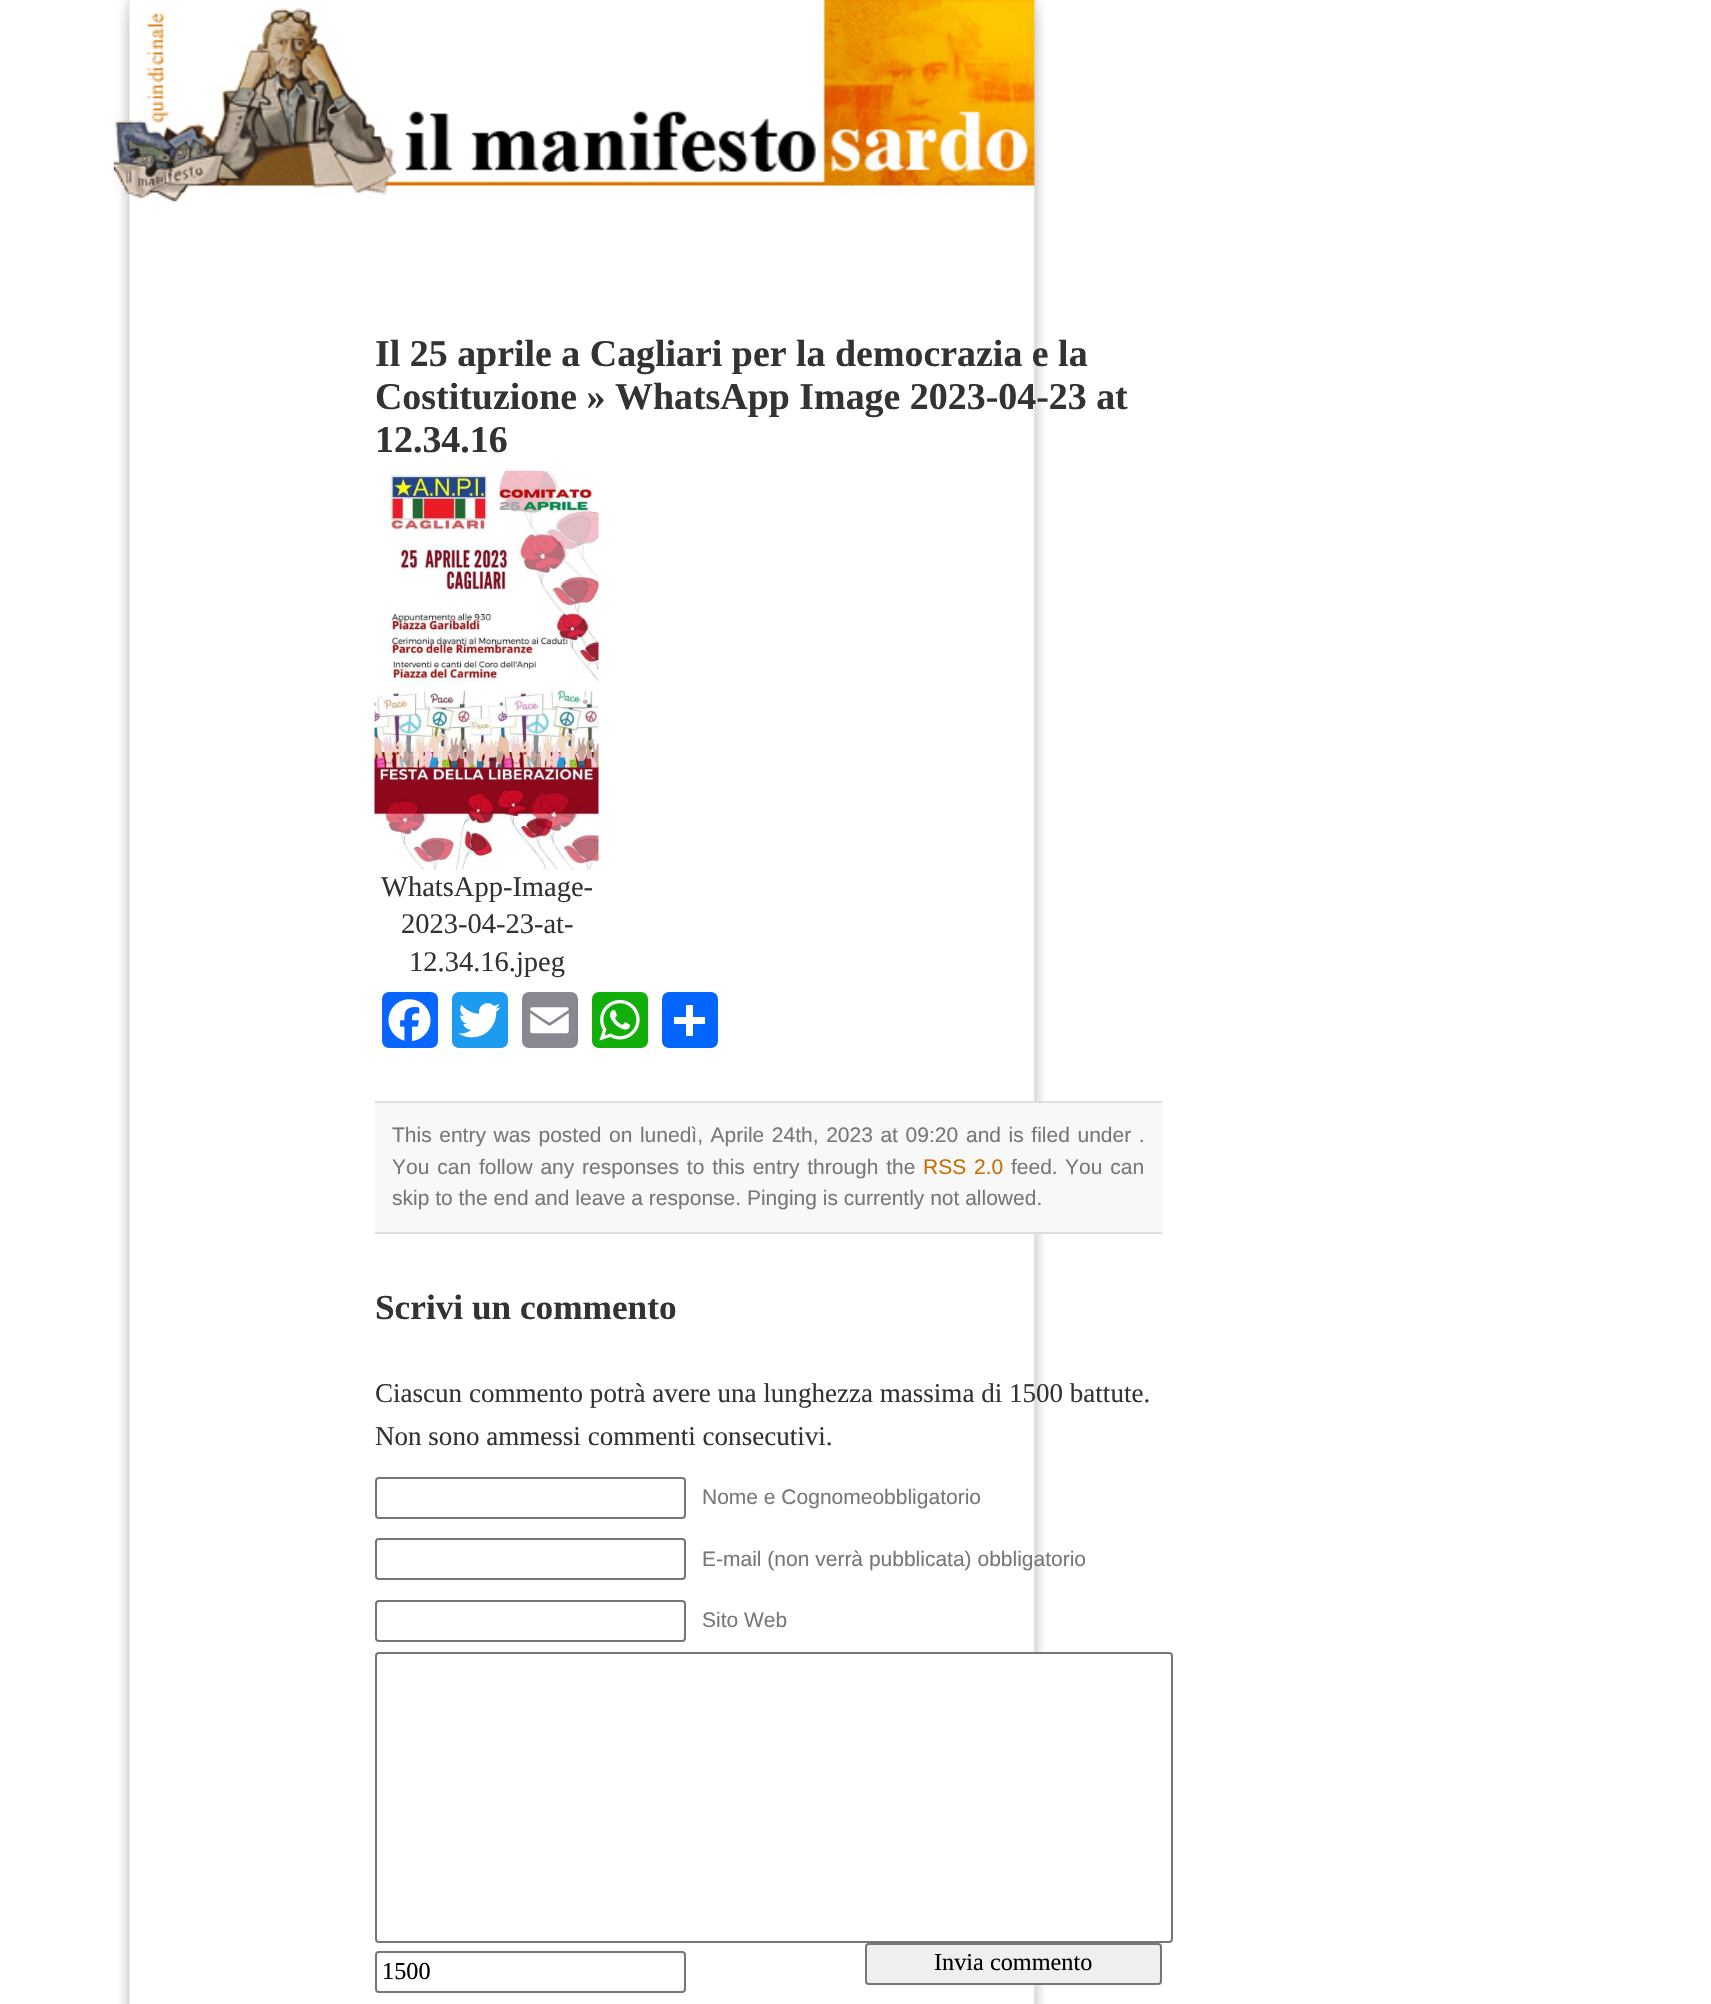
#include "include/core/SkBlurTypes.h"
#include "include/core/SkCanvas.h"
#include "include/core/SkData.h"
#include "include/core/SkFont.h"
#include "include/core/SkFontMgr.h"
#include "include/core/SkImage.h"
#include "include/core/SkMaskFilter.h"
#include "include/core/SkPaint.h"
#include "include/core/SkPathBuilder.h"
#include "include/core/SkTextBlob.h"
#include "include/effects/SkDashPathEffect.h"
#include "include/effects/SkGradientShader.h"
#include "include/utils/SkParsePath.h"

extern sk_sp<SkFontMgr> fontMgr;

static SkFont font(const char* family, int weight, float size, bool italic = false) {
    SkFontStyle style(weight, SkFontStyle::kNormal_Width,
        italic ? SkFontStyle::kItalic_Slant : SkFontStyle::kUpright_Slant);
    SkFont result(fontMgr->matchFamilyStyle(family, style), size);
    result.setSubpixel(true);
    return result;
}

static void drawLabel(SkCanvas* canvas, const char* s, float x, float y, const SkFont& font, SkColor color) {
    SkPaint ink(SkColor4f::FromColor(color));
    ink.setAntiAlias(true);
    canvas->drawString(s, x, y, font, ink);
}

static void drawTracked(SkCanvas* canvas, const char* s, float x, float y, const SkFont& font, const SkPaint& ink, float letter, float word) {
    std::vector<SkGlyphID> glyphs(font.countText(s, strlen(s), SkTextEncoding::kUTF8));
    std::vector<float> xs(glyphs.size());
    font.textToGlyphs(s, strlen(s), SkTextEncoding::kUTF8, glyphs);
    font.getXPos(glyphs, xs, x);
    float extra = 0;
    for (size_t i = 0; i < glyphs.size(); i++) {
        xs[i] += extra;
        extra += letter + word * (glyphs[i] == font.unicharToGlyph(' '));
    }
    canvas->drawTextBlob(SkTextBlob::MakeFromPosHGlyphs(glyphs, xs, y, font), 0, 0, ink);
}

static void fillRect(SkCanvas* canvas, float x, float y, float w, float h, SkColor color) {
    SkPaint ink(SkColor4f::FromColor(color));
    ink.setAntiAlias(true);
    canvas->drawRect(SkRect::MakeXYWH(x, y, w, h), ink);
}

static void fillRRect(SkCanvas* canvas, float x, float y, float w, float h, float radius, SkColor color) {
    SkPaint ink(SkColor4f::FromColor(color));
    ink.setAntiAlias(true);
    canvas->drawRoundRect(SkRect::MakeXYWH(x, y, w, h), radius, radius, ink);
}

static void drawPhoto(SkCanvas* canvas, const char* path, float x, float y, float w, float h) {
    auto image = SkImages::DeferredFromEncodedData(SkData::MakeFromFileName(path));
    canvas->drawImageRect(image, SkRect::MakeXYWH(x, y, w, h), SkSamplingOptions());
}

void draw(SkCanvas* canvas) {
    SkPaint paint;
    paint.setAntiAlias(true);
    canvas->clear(0xFFFFFFFF);
    drawPhoto(canvas, "assets/img1.png", 119, 201, 926, 1803);
    drawPhoto(canvas, "assets/img2.png", 113, 0, 932, 202);
    SkFont font1 = font("Liberation Serif", 700, 37.9f);
    drawLabel(canvas, "Il 25 aprile a Cagliari per la democrazia e la", 375, 366, font1, 0xFF333333);
    drawLabel(canvas, "Costituzione » WhatsApp Image 2023-04-23 at", 375, 409, font1, 0xFF333333);
    drawLabel(canvas, "12.34.16", 375, 452, font1, 0xFF333333);
    drawPhoto(canvas, "assets/img3.png", 374, 470, 225, 400);
    SkFont font2 = font("Liberation Serif", 400, 28.5f);
    drawLabel(canvas, "WhatsApp-Image-", 381, 896, font2, 0xFF333333);
    drawLabel(canvas, "2023-04-23-at-", 401, 933, font2, 0xFF333333);
    drawLabel(canvas, "12.34.16.jpeg", 409, 971, font2, 0xFF333333);
    fillRRect(canvas, 382, 992, 56, 56, 7, 0xFF0866FF);
    drawPhoto(canvas, "assets/img4.png", 388, 999, 43, 43);
    fillRRect(canvas, 452, 992, 56, 56, 7, 0xFF1D9BF0);
    drawPhoto(canvas, "assets/img5.png", 458, 1003, 43, 35);
    fillRRect(canvas, 522, 992, 56, 56, 7, 0xFF888990);
    drawPhoto(canvas, "assets/img6.png", 530, 1007, 39, 27);
    fillRRect(canvas, 592, 992, 56, 56, 7, 0xFF12AF0A);
    drawPhoto(canvas, "assets/img7.png", 599, 1000, 41, 41);
    fillRRect(canvas, 662, 992, 56, 56, 7, 0xFF0166FF);
    fillRect(canvas, 686, 1005, 7, 31, 0xFFFFFFFF);
    fillRect(canvas, 674, 1017, 31, 7, 0xFFFFFFFF);
    fillRect(canvas, 375, 1103, 787, 129, 0xFFF8F8F8);
    fillRect(canvas, 375, 1101, 787, 2, 0xFFDDDDDD);
    fillRect(canvas, 375, 1232, 787, 2, 0xFFDDDDDD);
    SkFont font3 = font("Liberation Sans", 400, 21);
    paint.setColor(0xFF777777);
    drawTracked(canvas, "This entry was posted", 392, 1142, font3, paint, 0, 1.75f);
    drawTracked(canvas, "on lunedì, Aprile 24th, 2023 at 09:20", 609, 1142, font3, paint, 0, 1.75f);
    drawTracked(canvas, "and is filed under .", 966, 1142, font3, paint, 0, 1.75f);
    drawTracked(canvas, "You can follow any responses to this entry through the", 392, 1174, font3, paint, 0, 2);
    paint.setColor(0xFFC77005);
    drawTracked(canvas, "RSS 2.0", 923, 1174, font3, paint, 0, 2);
    drawLabel(canvas, "feed.", 1011, 1174, font3, 0xFF777777);
    paint.setColor(0xFF777777);
    drawTracked(canvas, "You can", 1065, 1174, font3, paint, 0, 2);
    drawLabel(canvas, "skip to the end and leave a response. Pinging is currently not allowed.", 392, 1205, font3, 0xFF777777);
    SkFont font4 = font("Liberation Serif", 700, 35.25f);
    drawLabel(canvas, "Scrivi un commento", 375, 1319, font4, 0xFF333333);
    SkFont font5 = font("Liberation Serif", 400, 27.05f);
    drawLabel(canvas, "Ciascun commento potrà avere una lunghezza massima di 1500 battute.", 375, 1402, font5, 0xFF333333);
    drawLabel(canvas, "Non sono ammessi commenti consecutivi.", 375, 1445, font5, 0xFF333333);
    paint.setStroke(true);
    paint.setStrokeWidth(2);
    paint.setColor(0xFF767676);
    canvas->drawRoundRect(SkRect::MakeXYWH(376, 1478, 309, 40), 3, 3, paint);
    drawLabel(canvas, "Nome e Cognomeobbligatorio", 702, 1504, font3, 0xFF777777);
    canvas->drawRoundRect(SkRect::MakeXYWH(376, 1539, 309, 40), 3, 3, paint);
    drawLabel(canvas, "E-mail (non verrà pubblicata) obbligatorio", 702, 1566, font3, 0xFF777777);
    canvas->drawRoundRect(SkRect::MakeXYWH(376, 1601, 309, 40), 3, 3, paint);
    drawLabel(canvas, "Sito Web", 702, 1627, font3, 0xFF777777);
    paint.setStroke(false);
    paint.setColor(0xFFFFFFFF);
    canvas->drawRoundRect(SkRect::MakeXYWH(376, 1653, 796, 289), 3, 3, paint);
    paint.setStroke(true);
    paint.setColor(0xFF767676);
    canvas->drawRoundRect(SkRect::MakeXYWH(376, 1653, 796, 289), 3, 3, paint);
    canvas->drawRoundRect(SkRect::MakeXYWH(376, 1952, 309, 40), 3, 3, paint);
    SkFont font6 = font("Liberation Serif", 400, 24.25f);
    drawLabel(canvas, "1500", 382, 1979, font6, 0xFF000000);
    paint.setStroke(false);
    paint.setColor(0xFFEFEFEF);
    canvas->drawRoundRect(SkRect::MakeXYWH(866, 1944, 295, 40), 3, 3, paint);
    paint.setStroke(true);
    paint.setColor(0xFF767676);
    canvas->drawRoundRect(SkRect::MakeXYWH(866, 1944, 295, 40), 3, 3, paint);
    drawLabel(canvas, "Invia commento", 934, 1970, font6, 0xFF000000);
}
